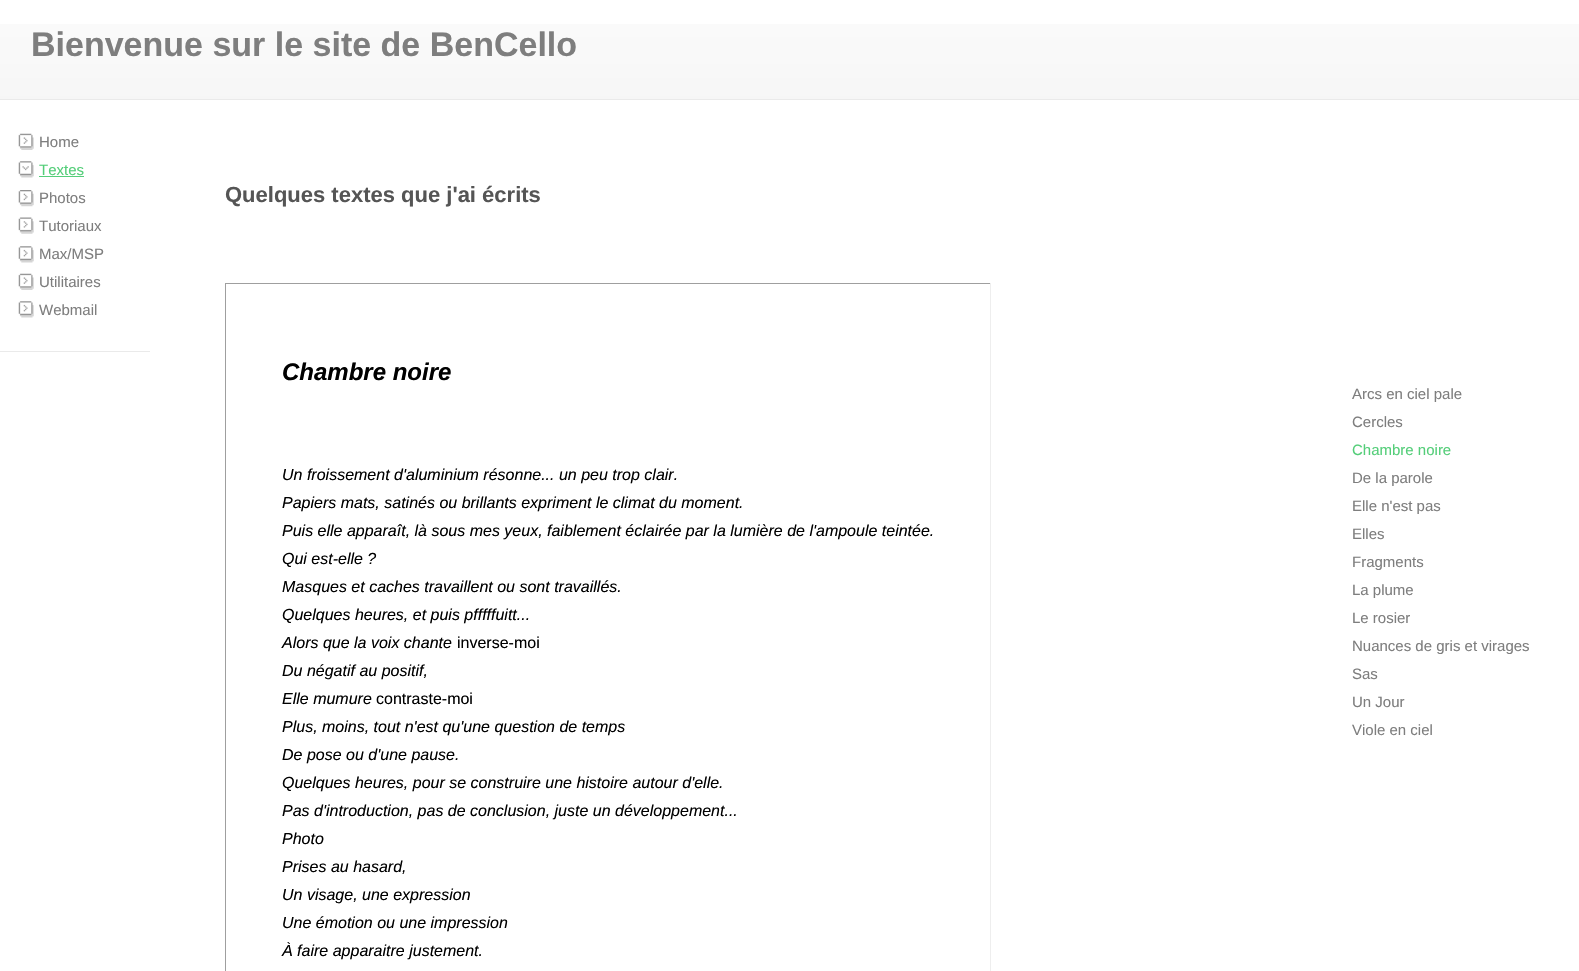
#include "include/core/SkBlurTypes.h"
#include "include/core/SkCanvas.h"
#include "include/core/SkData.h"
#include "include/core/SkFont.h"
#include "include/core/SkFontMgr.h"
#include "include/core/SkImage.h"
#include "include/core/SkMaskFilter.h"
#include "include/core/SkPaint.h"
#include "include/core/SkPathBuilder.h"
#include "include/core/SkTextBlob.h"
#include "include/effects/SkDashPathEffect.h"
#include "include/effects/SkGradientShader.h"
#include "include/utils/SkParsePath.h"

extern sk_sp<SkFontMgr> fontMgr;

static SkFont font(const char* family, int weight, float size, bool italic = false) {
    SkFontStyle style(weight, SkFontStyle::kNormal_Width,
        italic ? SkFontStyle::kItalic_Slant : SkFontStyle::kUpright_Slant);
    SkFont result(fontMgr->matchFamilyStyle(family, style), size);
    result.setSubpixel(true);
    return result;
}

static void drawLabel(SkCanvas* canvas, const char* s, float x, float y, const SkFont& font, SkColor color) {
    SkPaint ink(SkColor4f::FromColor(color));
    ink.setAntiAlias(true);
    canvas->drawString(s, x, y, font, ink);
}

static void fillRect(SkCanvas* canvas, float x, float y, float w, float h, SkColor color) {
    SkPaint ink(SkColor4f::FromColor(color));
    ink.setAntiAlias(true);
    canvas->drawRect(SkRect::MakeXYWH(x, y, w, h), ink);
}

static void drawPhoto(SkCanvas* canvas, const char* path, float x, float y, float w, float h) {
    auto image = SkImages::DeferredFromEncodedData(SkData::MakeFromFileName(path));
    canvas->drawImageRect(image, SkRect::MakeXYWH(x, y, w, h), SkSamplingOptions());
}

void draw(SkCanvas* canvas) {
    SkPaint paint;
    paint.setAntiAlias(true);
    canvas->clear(0xFFFFFFFF);
    drawPhoto(canvas, "assets/img1.png", 0, 24, 1579, 75);
    fillRect(canvas, 0, 99, 1579, 1, 0xFFEAEAEA);
    SkFont font1 = font("Liberation Sans", 700, 34);
    drawLabel(canvas, "Bienvenue sur le site de BenCello", 31, 56, font1, 0xFF7E7E7E);
    fillRect(canvas, 0, 351, 150, 1, 0xFFEAEAEA);
    drawPhoto(canvas, "assets/img2.png", 18, 133, 16, 17);
    SkFont font2 = font("Liberation Sans", 400, 15);
    drawLabel(canvas, "Home", 39, 147, font2, 0xFF7E7E7E);
    drawPhoto(canvas, "assets/img3.png", 18, 161, 16, 17);
    drawLabel(canvas, "Textes", 39, 175, font2, 0xFF54CE79);
    fillRect(canvas, 39, 176, 45, 1, 0xFF54CE79);
    drawPhoto(canvas, "assets/img4.png", 18, 190, 16, 17);
    drawLabel(canvas, "Photos", 39, 203, font2, 0xFF7E7E7E);
    drawPhoto(canvas, "assets/img5.png", 18, 217, 16, 17);
    drawLabel(canvas, "Tutoriaux", 39, 231, font2, 0xFF7E7E7E);
    drawPhoto(canvas, "assets/img6.png", 18, 246, 16, 17);
    drawLabel(canvas, "Max/MSP", 39, 259, font2, 0xFF7E7E7E);
    drawPhoto(canvas, "assets/img2.png", 18, 273, 16, 17);
    drawLabel(canvas, "Utilitaires", 39, 287, font2, 0xFF7E7E7E);
    drawPhoto(canvas, "assets/img6.png", 18, 301, 16, 17);
    drawLabel(canvas, "Webmail", 39, 315, font2, 0xFF7E7E7E);
    SkFont font3 = font("Liberation Sans", 700, 22);
    drawLabel(canvas, "Quelques textes que j'ai écrits", 225, 202, font3, 0xFF555555);
    fillRect(canvas, 225, 283, 766, 1, 0xFF9F9F9F);
    fillRect(canvas, 990, 283, 1, 688, 0xFFEEEEEE);
    fillRect(canvas, 225, 283, 1, 688, 0xFF9F9F9F);
    SkFont font4 = font("Liberation Sans", 700, 24, true);
    drawLabel(canvas, "Chambre noire", 282, 380, font4, 0xFF000000);
    SkFont font5 = font("Liberation Sans", 400, 16, true);
    drawLabel(canvas, "Un froissement d'aluminium résonne... un peu trop clair.", 282, 480, font5, 0xFF000000);
    drawLabel(canvas, "Papiers mats, satinés ou brillants expriment le climat du moment.", 282, 508, font5, 0xFF000000);
    drawLabel(canvas, "Puis elle apparaît, là sous mes yeux, faiblement éclairée par la lumière de l'ampoule teintée.", 282, 536, font5, 0xFF000000);
    drawLabel(canvas, "Qui est-elle ?", 282, 564, font5, 0xFF000000);
    drawLabel(canvas, "Masques et caches travaillent ou sont travaillés.", 282, 592, font5, 0xFF000000);
    drawLabel(canvas, "Quelques heures, et puis pfffffuitt...", 282, 620, font5, 0xFF000000);
    drawLabel(canvas, "Alors que la voix chante", 282, 648, font5, 0xFF000000);
    SkFont font6 = font("Liberation Sans", 400, 16);
    drawLabel(canvas, "inverse-moi", 457, 648, font6, 0xFF000000);
    drawLabel(canvas, "Du négatif au positif,", 282, 676, font5, 0xFF000000);
    drawLabel(canvas, "Elle mumure", 282, 704, font5, 0xFF000000);
    drawLabel(canvas, "contraste-moi", 376, 704, font6, 0xFF000000);
    drawLabel(canvas, "Plus, moins, tout n'est qu'une question de temps", 282, 732, font5, 0xFF000000);
    drawLabel(canvas, "De pose ou d'une pause.", 282, 760, font5, 0xFF000000);
    drawLabel(canvas, "Quelques heures, pour se construire une histoire autour d'elle.", 282, 788, font5, 0xFF000000);
    drawLabel(canvas, "Pas d'introduction, pas de conclusion, juste un développement...", 282, 816, font5, 0xFF000000);
    drawLabel(canvas, "Photo", 282, 844, font5, 0xFF000000);
    drawLabel(canvas, "Prises au hasard,", 282, 872, font5, 0xFF000000);
    drawLabel(canvas, "Un visage, une expression", 282, 900, font5, 0xFF000000);
    drawLabel(canvas, "Une émotion ou une impression", 282, 928, font5, 0xFF000000);
    drawLabel(canvas, "À faire apparaitre justement.", 282, 956, font5, 0xFF000000);
    drawLabel(canvas, "Arcs en ciel pale", 1352, 399, font2, 0xFF7E7E7E);
    drawLabel(canvas, "Cercles", 1352, 427, font2, 0xFF7E7E7E);
    drawLabel(canvas, "Chambre noire", 1352, 455, font2, 0xFF54CE79);
    drawLabel(canvas, "De la parole", 1352, 483, font2, 0xFF7E7E7E);
    drawLabel(canvas, "Elle n'est pas", 1352, 511, font2, 0xFF7E7E7E);
    drawLabel(canvas, "Elles", 1352, 539, font2, 0xFF7E7E7E);
    drawLabel(canvas, "Fragments", 1352, 567, font2, 0xFF7E7E7E);
    drawLabel(canvas, "La plume", 1352, 595, font2, 0xFF7E7E7E);
    drawLabel(canvas, "Le rosier", 1352, 623, font2, 0xFF7E7E7E);
    drawLabel(canvas, "Nuances de gris et virages", 1352, 651, font2, 0xFF7E7E7E);
    drawLabel(canvas, "Sas", 1352, 679, font2, 0xFF7E7E7E);
    drawLabel(canvas, "Un Jour", 1352, 707, font2, 0xFF7E7E7E);
    drawLabel(canvas, "Viole en ciel", 1352, 735, font2, 0xFF7E7E7E);
}
